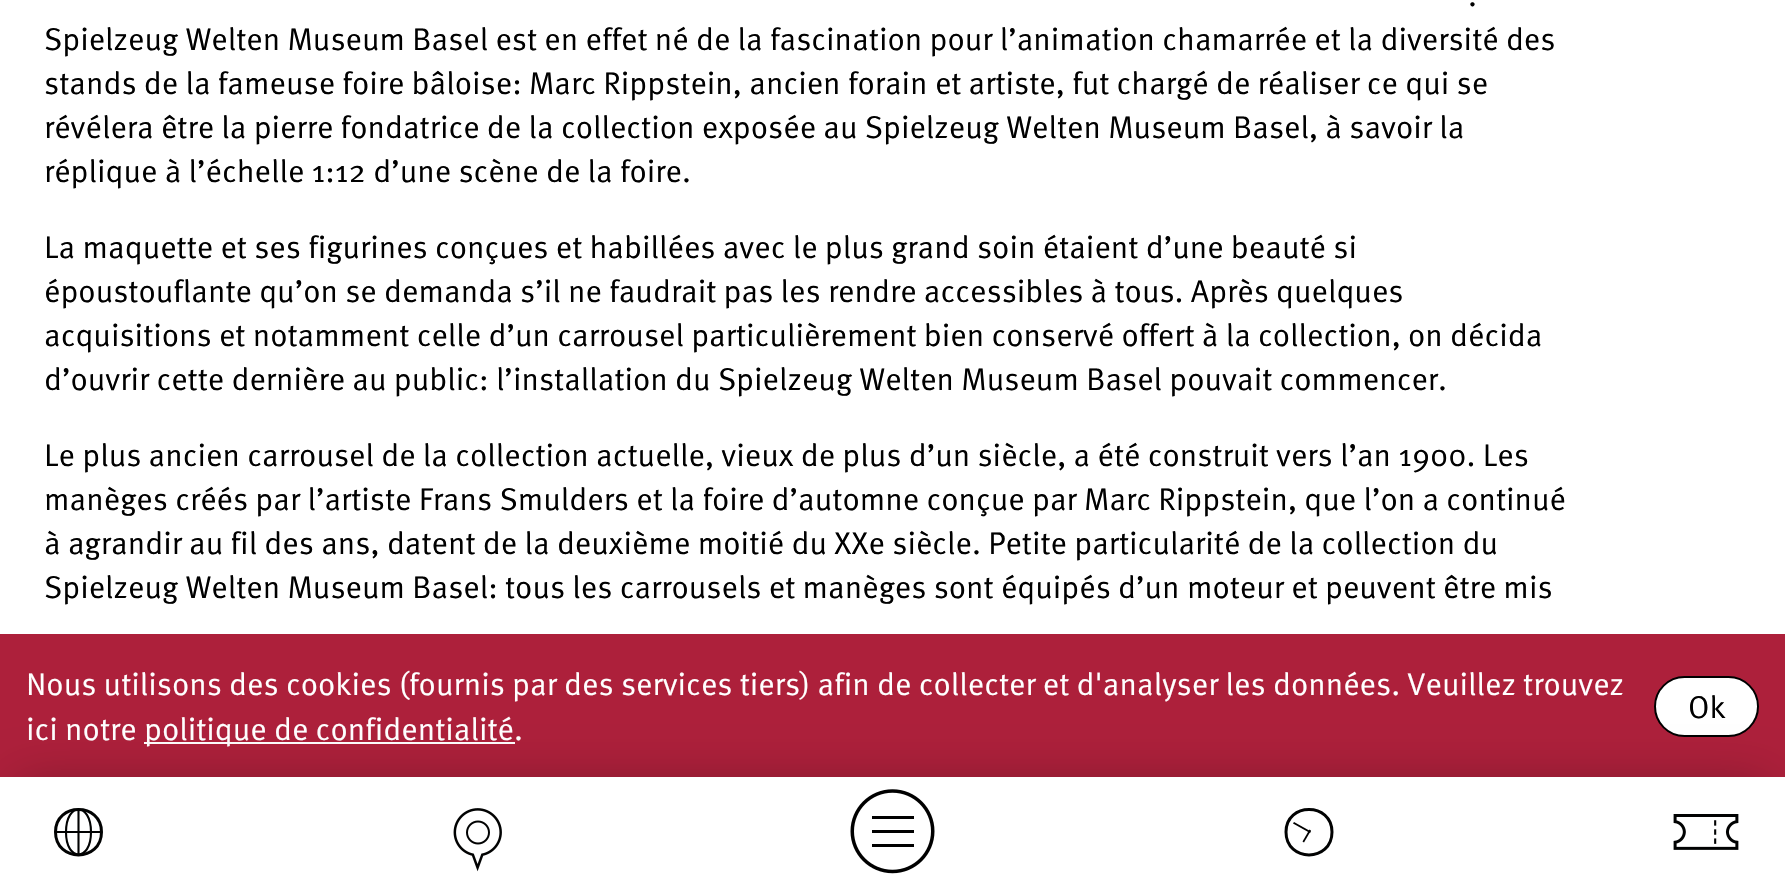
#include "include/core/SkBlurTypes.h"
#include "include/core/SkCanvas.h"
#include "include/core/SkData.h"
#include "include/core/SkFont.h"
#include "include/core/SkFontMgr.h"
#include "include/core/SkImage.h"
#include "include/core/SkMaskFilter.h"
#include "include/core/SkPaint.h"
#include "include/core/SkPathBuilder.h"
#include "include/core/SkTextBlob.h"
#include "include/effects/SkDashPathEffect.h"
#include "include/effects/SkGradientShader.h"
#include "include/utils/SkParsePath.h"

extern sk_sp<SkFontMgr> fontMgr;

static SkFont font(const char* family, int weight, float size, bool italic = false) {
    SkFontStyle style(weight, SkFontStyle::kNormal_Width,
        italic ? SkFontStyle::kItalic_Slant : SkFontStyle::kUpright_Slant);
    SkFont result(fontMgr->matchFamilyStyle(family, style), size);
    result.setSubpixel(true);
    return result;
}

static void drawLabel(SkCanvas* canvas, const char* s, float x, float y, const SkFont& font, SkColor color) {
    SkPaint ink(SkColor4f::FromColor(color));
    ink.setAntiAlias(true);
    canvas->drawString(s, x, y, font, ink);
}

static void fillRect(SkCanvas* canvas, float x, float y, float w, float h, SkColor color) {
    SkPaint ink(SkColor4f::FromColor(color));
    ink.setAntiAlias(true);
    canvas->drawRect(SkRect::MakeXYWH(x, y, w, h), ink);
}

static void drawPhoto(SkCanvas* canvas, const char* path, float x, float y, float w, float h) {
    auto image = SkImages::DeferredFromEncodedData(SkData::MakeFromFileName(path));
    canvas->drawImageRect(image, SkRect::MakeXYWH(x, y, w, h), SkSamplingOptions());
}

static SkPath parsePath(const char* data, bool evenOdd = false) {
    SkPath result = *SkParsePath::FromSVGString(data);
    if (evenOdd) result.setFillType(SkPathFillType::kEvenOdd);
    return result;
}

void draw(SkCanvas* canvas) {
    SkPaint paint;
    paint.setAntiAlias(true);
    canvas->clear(0xFFFFFFFF);
    SkFont font1 = font("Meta", 400, 31.5f);
    drawLabel(canvas, ".", 1468, 6, font1, 0xFF000000);
    drawLabel(canvas, "Spielzeug Welten Museum Basel est en effet né de la fascination pour l’animation chamarrée et la diversité des", 44, 50, font1, 0xFF000000);
    drawLabel(canvas, "stands de la fameuse foire bâloise: Marc Rippstein, ancien forain et artiste, fut chargé de réaliser ce qui se", 44, 94, font1, 0xFF000000);
    drawLabel(canvas, "révélera être la pierre fondatrice de la collection exposée au Spielzeug Welten Museum Basel, à savoir la", 44, 138, font1, 0xFF000000);
    drawLabel(canvas, "réplique à l’échelle 1:12 d’une scène de la foire.", 44, 182, font1, 0xFF000000);
    drawLabel(canvas, "La maquette et ses figurines conçues et habillées avec le plus grand soin étaient d’une beauté si", 44, 258, font1, 0xFF000000);
    drawLabel(canvas, "époustouflante qu’on se demanda s’il ne faudrait pas les rendre accessibles à tous. Après quelques", 44, 302, font1, 0xFF000000);
    drawLabel(canvas, "acquisitions et notamment celle d’un carrousel particulièrement bien conservé offert à la collection, on décida", 44, 346, font1, 0xFF000000);
    drawLabel(canvas, "d’ouvrir cette dernière au public: l’installation du Spielzeug Welten Museum Basel pouvait commencer.", 44, 390, font1, 0xFF000000);
    drawLabel(canvas, "Le plus ancien carrousel de la collection actuelle, vieux de plus d’un siècle, a été construit vers l’an 1900. Les", 44, 466, font1, 0xFF000000);
    drawLabel(canvas, "manèges créés par l’artiste Frans Smulders et la foire d’automne conçue par Marc Rippstein, que l’on a continué", 44, 510, font1, 0xFF000000);
    drawLabel(canvas, "à agrandir au fil des ans, datent de la deuxième moitié du XXe siècle. Petite particularité de la collection du", 44, 554, font1, 0xFF000000);
    drawLabel(canvas, "Spielzeug Welten Museum Basel: tous les carrousels et manèges sont équipés d’un moteur et peuvent être mis", 44, 598, font1, 0xFF000000);
    fillRect(canvas, 0, 634, 1785, 143, 0xFFAD203B);
    drawLabel(canvas, "Nous utilisons des cookies (fournis par des services tiers) afin de collecter et d'analyser les données. Veuillez trouvez", 26, 695, font1, 0xFFFFFFFF);
    drawLabel(canvas, "ici notre", 26, 740, font1, 0xFFFFFFFF);
    fillRect(canvas, 144, 742, 371, 2, 0xFFFFFFFF);
    drawLabel(canvas, "politique de confidentialité.", 144, 740, font1, 0xFFFFFFFF);
    paint.setColor(0xFFFFFFFF);
    canvas->drawRoundRect(SkRect::MakeXYWH(1655, 677, 103, 59), 29.5f, 29.5f, paint);
    paint.setStroke(true);
    paint.setStrokeWidth(2);
    paint.setColor(0xFF000000);
    canvas->drawRoundRect(SkRect::MakeXYWH(1655, 677, 103, 59), 29.5f, 29.5f, paint);
    drawLabel(canvas, "Ok", 1688, 718, font1, 0xFF000000);
    paint.setStroke(false);
    paint.setColor(0x4D000000);
    paint.setMaskFilter(SkMaskFilter::MakeBlur(kNormal_SkBlurStyle, 26));
    canvas->drawRect(SkRect::MakeXYWH(18, 786, 1750, 84), paint);
    paint.setMaskFilter(nullptr);
    fillRect(canvas, 0, 777, 1785, 119, 0xFFFFFFFF);
    paint.setStroke(true);
    paint.setStrokeWidth(2.1f);
    paint.setColor(0xFF010202);
    canvas->drawPath(parsePath("M66 832C66 802 91 802 91 832C91 862 66 862 66 832Z"), paint);
    fillRect(canvas, 56, 831, 46, 2, 0xFF010202);
    canvas->drawPath(parsePath("M78.5 809V855"), paint);
    paint.setStrokeWidth(3);
    canvas->drawPath(parsePath("M101.5 832C101.5 862.5 55.5 862.5 55.5 832C55.5 802 101.5 802 101.5 832Z"), paint);
    drawPhoto(canvas, "assets/img1.png", 453, 808, 49, 64);
    drawPhoto(canvas, "assets/img2.png", 850, 789, 85, 85);
    canvas->drawPath(parsePath("M1332 832C1332 862.5 1286 862.5 1286 832C1286 802 1332 802 1332 832Z"), paint);
    paint.setStroke(false);
    paint.setColor(0xFF000000);
    canvas->drawPath(parsePath("M1293 823.5L1294 822L1311 831.5L1310 833Z"), paint);
    canvas->drawPath(parsePath("M1304 842.5L1302.5 841.5L1309.5 829.5L1311 830.5Z"), paint);
    drawPhoto(canvas, "assets/img3.png", 1673, 814, 66, 36);
}
